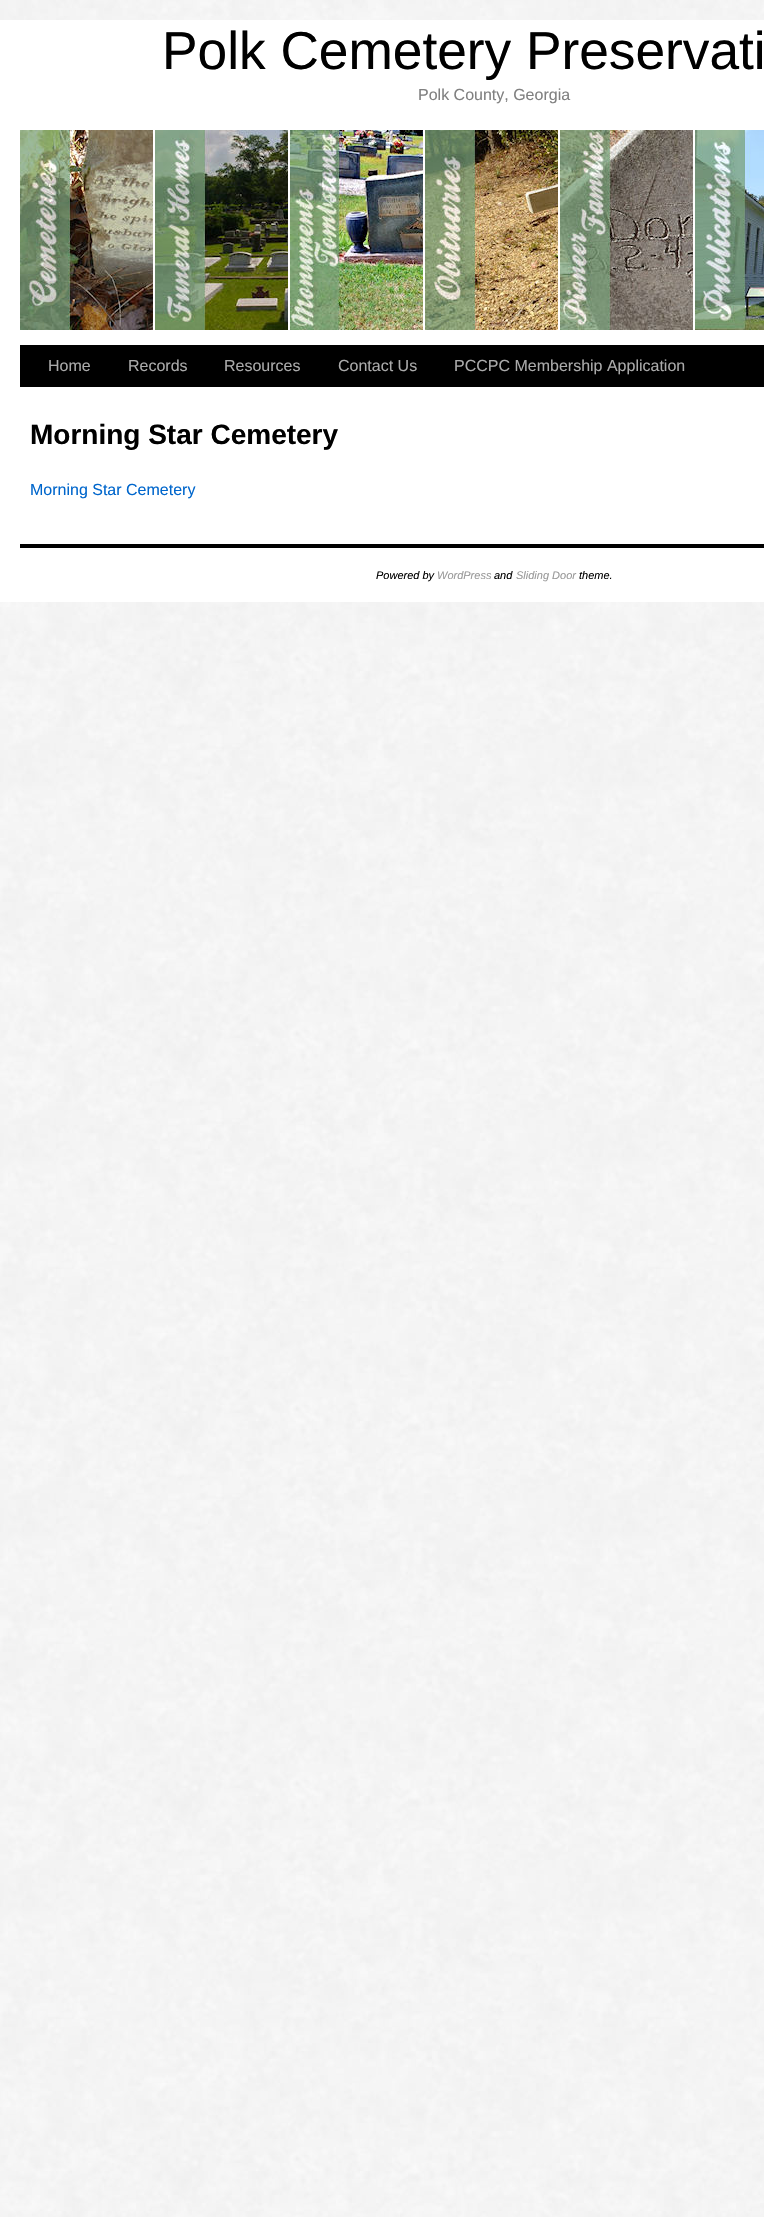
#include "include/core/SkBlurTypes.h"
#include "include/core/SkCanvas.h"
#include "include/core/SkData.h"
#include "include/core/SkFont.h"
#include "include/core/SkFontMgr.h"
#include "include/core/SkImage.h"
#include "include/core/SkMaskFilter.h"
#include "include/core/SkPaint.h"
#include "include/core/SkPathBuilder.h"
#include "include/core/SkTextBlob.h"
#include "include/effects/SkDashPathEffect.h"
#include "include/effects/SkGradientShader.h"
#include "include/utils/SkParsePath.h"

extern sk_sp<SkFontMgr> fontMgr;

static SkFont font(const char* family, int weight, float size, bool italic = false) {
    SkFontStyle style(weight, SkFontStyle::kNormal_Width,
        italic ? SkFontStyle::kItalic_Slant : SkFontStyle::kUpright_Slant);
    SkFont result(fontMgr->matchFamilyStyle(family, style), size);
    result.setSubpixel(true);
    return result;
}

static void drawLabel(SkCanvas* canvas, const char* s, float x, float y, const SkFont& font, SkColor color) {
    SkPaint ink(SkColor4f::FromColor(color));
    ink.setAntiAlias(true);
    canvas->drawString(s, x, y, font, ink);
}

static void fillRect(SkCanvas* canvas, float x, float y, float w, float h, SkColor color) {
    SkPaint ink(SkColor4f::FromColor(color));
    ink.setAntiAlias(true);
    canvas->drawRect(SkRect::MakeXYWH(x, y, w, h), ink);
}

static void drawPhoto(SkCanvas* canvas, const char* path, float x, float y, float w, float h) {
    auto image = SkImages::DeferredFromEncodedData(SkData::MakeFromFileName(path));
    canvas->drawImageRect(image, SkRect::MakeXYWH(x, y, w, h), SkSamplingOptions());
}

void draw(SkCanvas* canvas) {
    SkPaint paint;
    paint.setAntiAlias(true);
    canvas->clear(0xFFFFFFFF);
    drawPhoto(canvas, "assets/img1.png", 0, 0, 764, 2217);
    fillRect(canvas, 0, 20, 764, 582, 0xFFFFFFFF);
    SkFont font1 = font("Liberation Sans", 400, 53.25f);
    drawLabel(canvas, "Polk Cemetery Preservati", 162, 69, font1, 0xFF000000);
    SkFont font2 = font("Liberation Sans", 400, 16);
    drawLabel(canvas, "Polk County, Georgia", 418, 100, font2, 0xFF808080);
    drawPhoto(canvas, "assets/img2.png", 20, 130, 133, 200);
    drawPhoto(canvas, "assets/img3.png", 155, 130, 133, 200);
    drawPhoto(canvas, "assets/img4.png", 290, 130, 133, 200);
    drawPhoto(canvas, "assets/img5.png", 425, 130, 133, 200);
    drawPhoto(canvas, "assets/img6.png", 560, 130, 133, 200);
    drawPhoto(canvas, "assets/img7.png", 695, 130, 69, 200);
    fillRect(canvas, 20, 345, 744, 42, 0xFF000000);
    drawLabel(canvas, "Home", 48, 371, font2, 0xFFAAAAAA);
    drawLabel(canvas, "Records", 128, 371, font2, 0xFFAAAAAA);
    drawLabel(canvas, "Resources", 224, 371, font2, 0xFFAAAAAA);
    drawLabel(canvas, "Contact Us", 338, 371, font2, 0xFFAAAAAA);
    drawLabel(canvas, "PCCPC Membership Application", 454, 371, font2, 0xFFAAAAAA);
    SkFont font3 = font("Liberation Sans", 700, 28);
    drawLabel(canvas, "Morning Star Cemetery", 30, 444, font3, 0xFF000000);
    drawLabel(canvas, "Morning Star Cemetery", 30, 495, font2, 0xFF0066CC);
    fillRect(canvas, 20, 544, 744, 4, 0xFF000000);
    SkFont font4 = font("Liberation Sans", 400, 11, true);
    drawLabel(canvas, "Powered by", 376, 579, font4, 0xFF000000);
    drawLabel(canvas, "WordPress", 437, 579, font4, 0xFF999999);
    drawLabel(canvas, "and", 494, 579, font4, 0xFF000000);
    drawLabel(canvas, "Sliding Door", 516, 579, font4, 0xFF999999);
    drawLabel(canvas, "theme.", 579, 579, font4, 0xFF000000);
}
